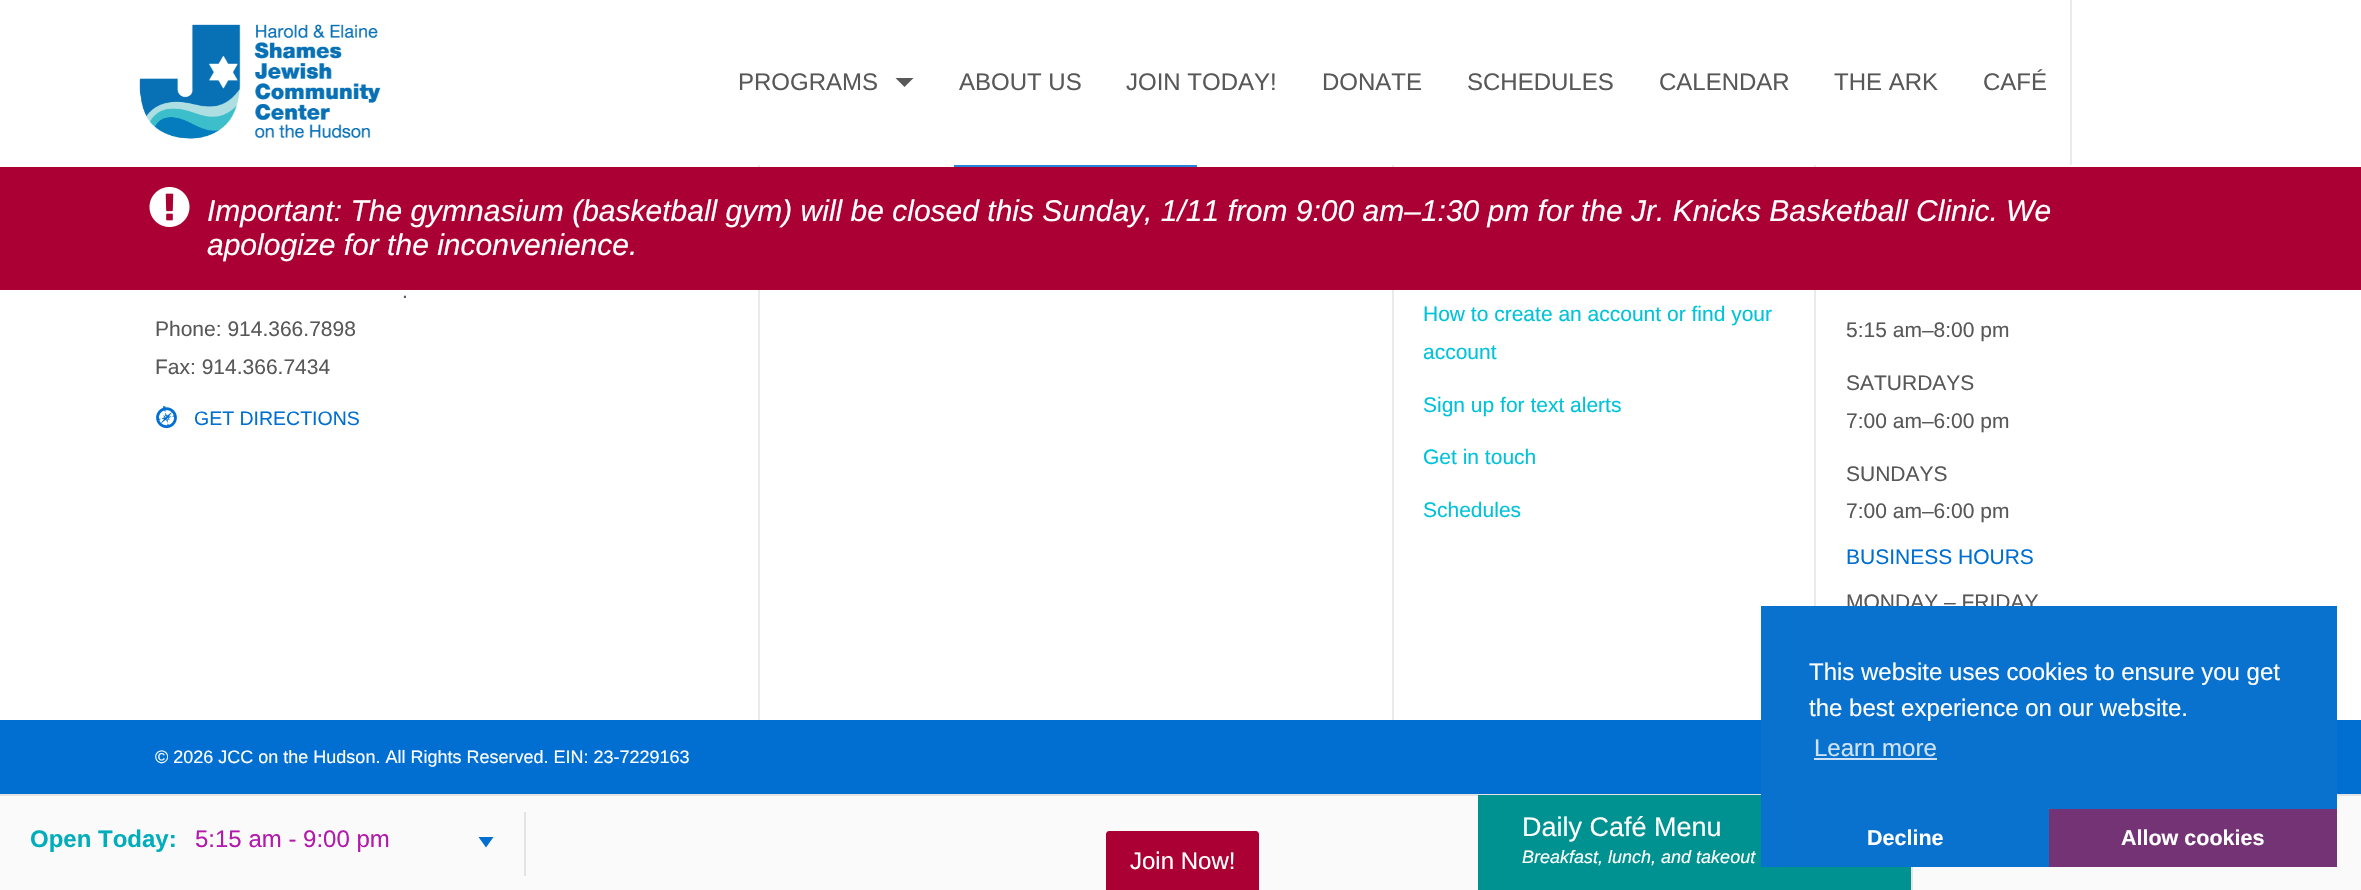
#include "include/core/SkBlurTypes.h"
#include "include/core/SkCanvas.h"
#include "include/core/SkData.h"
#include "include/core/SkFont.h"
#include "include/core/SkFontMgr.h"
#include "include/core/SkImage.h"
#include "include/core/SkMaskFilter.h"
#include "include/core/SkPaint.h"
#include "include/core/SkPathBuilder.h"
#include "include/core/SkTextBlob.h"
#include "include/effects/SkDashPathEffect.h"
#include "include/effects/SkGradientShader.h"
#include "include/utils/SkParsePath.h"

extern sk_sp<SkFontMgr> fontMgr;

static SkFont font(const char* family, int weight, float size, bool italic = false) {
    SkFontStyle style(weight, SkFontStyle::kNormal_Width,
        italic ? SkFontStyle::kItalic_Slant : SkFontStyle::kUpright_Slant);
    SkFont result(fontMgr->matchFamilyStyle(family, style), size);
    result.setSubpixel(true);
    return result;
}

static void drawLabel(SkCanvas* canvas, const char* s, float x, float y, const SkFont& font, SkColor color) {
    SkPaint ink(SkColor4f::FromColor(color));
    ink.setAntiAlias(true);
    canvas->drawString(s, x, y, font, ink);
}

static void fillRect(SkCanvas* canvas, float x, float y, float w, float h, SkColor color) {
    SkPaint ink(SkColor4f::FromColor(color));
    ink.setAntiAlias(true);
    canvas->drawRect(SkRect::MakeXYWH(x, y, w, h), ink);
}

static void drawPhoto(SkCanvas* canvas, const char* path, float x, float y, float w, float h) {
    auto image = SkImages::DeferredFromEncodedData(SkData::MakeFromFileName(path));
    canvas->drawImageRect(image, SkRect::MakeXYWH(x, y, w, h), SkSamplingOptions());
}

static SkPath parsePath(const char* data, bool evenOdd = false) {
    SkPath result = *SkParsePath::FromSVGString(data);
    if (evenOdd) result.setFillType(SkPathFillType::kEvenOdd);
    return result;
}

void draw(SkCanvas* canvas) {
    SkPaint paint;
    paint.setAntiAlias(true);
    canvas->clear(0xFFFFFFFF);
    drawPhoto(canvas, "assets/img1.png", 139, 24, 242, 115);
    SkFont font1 = font("Liberation Sans", 400, 24);
    drawLabel(canvas, "PROGRAMS", 738, 90, font1, 0xFF585858);
    paint.setColor(0xFF585858);
    canvas->drawPath(parsePath("M895.5 78H913.5L904.5 87Z"), paint);
    drawLabel(canvas, "ABOUT US", 959, 90, font1, 0xFF585858);
    drawLabel(canvas, "JOIN TODAY!", 1126, 90, font1, 0xFF585858);
    drawLabel(canvas, "DONATE", 1322, 90, font1, 0xFF585858);
    drawLabel(canvas, "SCHEDULES", 1467, 90, font1, 0xFF585858);
    drawLabel(canvas, "CALENDAR", 1659, 90, font1, 0xFF585858);
    drawLabel(canvas, "THE ARK", 1834, 90, font1, 0xFF585858);
    drawLabel(canvas, "CAFÉ", 1983, 90, font1, 0xFF585858);
    fillRect(canvas, 2070, 0, 2, 165, 0xFFEAEAEA);
    fillRect(canvas, 758, 165, 2, 555, 0xFFEAEAEA);
    fillRect(canvas, 954, 165, 243, 2, 0xFF006FD1);
    fillRect(canvas, 1392, 165, 2, 555, 0xFFEAEAEA);
    fillRect(canvas, 1814, 165, 2, 441, 0xFFEAEAEA);
    fillRect(canvas, 758, 165, 1058, 2, 0x26FFFFFF);
    fillRect(canvas, 0, 167, 2361, 123, 0xFFAB0033);
    drawPhoto(canvas, "assets/img2.png", 149, 187, 41, 40);
    SkFont font2 = font("Liberation Sans", 400, 30, true);
    drawLabel(canvas, "Important: The gymnasium (basketball gym) will be closed this Sunday, 1/11 from 9:00 am–1:30 pm for the Jr. Knicks Basketball Clinic. We", 207, 221, font2, 0xFFFFFFFF);
    drawLabel(canvas, "apologize for the inconvenience.", 207, 255, font2, 0xFFFFFFFF);
    SkFont font3 = font("Liberation Sans", 400, 21);
    drawLabel(canvas, ".", 402, 298, font3, 0xFF585858);
    drawLabel(canvas, "Phone: 914.366.7898", 155, 336, font3, 0xFF585858);
    drawLabel(canvas, "Fax: 914.366.7434", 155, 374, font3, 0xFF585858);
    drawPhoto(canvas, "assets/img3.png", 156, 405, 21, 24);
    SkFont font4 = font("Liberation Sans", 400, 19.5f);
    drawLabel(canvas, "GET DIRECTIONS", 194, 425, font4, 0xFF006FD1);
    drawLabel(canvas, "How to create an account or find your", 1423, 321, font3, 0xFF00C3D9);
    drawLabel(canvas, "account", 1423, 359, font3, 0xFF00C3D9);
    drawLabel(canvas, "Sign up for text alerts", 1423, 412, font3, 0xFF00C3D9);
    drawLabel(canvas, "Get in touch", 1423, 464, font3, 0xFF00C3D9);
    drawLabel(canvas, "Schedules", 1423, 517, font3, 0xFF00C3D9);
    drawLabel(canvas, "5:15 am–8:00 pm", 1846, 337, font3, 0xFF585858);
    drawLabel(canvas, "SATURDAYS", 1846, 390, font3, 0xFF585858);
    drawLabel(canvas, "7:00 am–6:00 pm", 1846, 428, font3, 0xFF585858);
    drawLabel(canvas, "SUNDAYS", 1846, 481, font3, 0xFF585858);
    drawLabel(canvas, "7:00 am–6:00 pm", 1846, 518, font3, 0xFF585858);
    drawLabel(canvas, "BUSINESS HOURS", 1846, 564, font3, 0xFF006FD1);
    drawLabel(canvas, "MONDAY – FRIDAY", 1846, 609, font3, 0xFF585858);
    fillRect(canvas, 0, 720, 2361, 74, 0xFF006FD1);
    SkFont font5 = font("Liberation Sans", 400, 18);
    drawLabel(canvas, "© 2026 JCC on the Hudson. All Rights Reserved. EIN: 23-7229163", 155, 763, font5, 0xFFFFFFFF);
    fillRect(canvas, 0, 796, 2361, 94, 0xFFFAFAFA);
    fillRect(canvas, 0, 794, 2361, 2, 0xFFE3E3E3);
    fillRect(canvas, 524, 812, 2, 64, 0xFFE3E3E3);
    SkFont font6 = font("Liberation Sans", 700, 24);
    drawLabel(canvas, "Open Today:", 30, 847, font6, 0xFF00ADBB);
    drawLabel(canvas, "5:15 am - 9:00 pm", 195, 847, font1, 0xFFB31AAB);
    paint.setColor(0xFF006FD1);
    canvas->drawPath(parsePath("M478.5 837H493.5L486 847.5Z"), paint);
    fillRect(canvas, 1478, 795, 433, 95, 0xFF009290);
    SkFont font7 = font("Liberation Sans", 400, 27);
    drawLabel(canvas, "Daily Café Menu", 1522, 836, font7, 0xFFFFFFFF);
    SkFont font8 = font("Liberation Sans", 400, 18, true);
    drawLabel(canvas, "Breakfast, lunch, and takeout", 1522, 863, font8, 0xFFFFFFFF);
    fillRect(canvas, 1911, 867, 2, 23, 0xFFE3E3E3);
    fillRect(canvas, 1761, 606, 576, 261, 0xFF0971CE);
    drawLabel(canvas, "This website uses cookies to ensure you get", 1809, 680, font1, 0xFFFFFFFF);
    drawLabel(canvas, "the best experience on our website.", 1809, 716, font1, 0xFFFFFFFF);
    drawLabel(canvas, "Learn more", 1814, 756, font1, 0xFFCEE3F5);
    fillRect(canvas, 1814, 758, 123, 2, 0xFFCEE3F5);
    SkFont font9 = font("Liberation Sans", 700, 21.5f);
    drawLabel(canvas, "Decline", 1867, 845, font9, 0xFFFFFFFF);
    fillRect(canvas, 2049, 809, 288, 58, 0xFF733375);
    drawLabel(canvas, "Allow cookies", 2121, 845, font9, 0xFFFFFFFF);
    paint.setColor(0xFFAB0033);
    canvas->drawPath(parsePath("M1109 831H1256C1257.5 831 1259 832.5 1259 834V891H1106V834C1106 832.5 1107.5 831 1109 831Z"), paint);
    drawLabel(canvas, "Join Now!", 1130, 869, font1, 0xFFFFFFFF);
}
